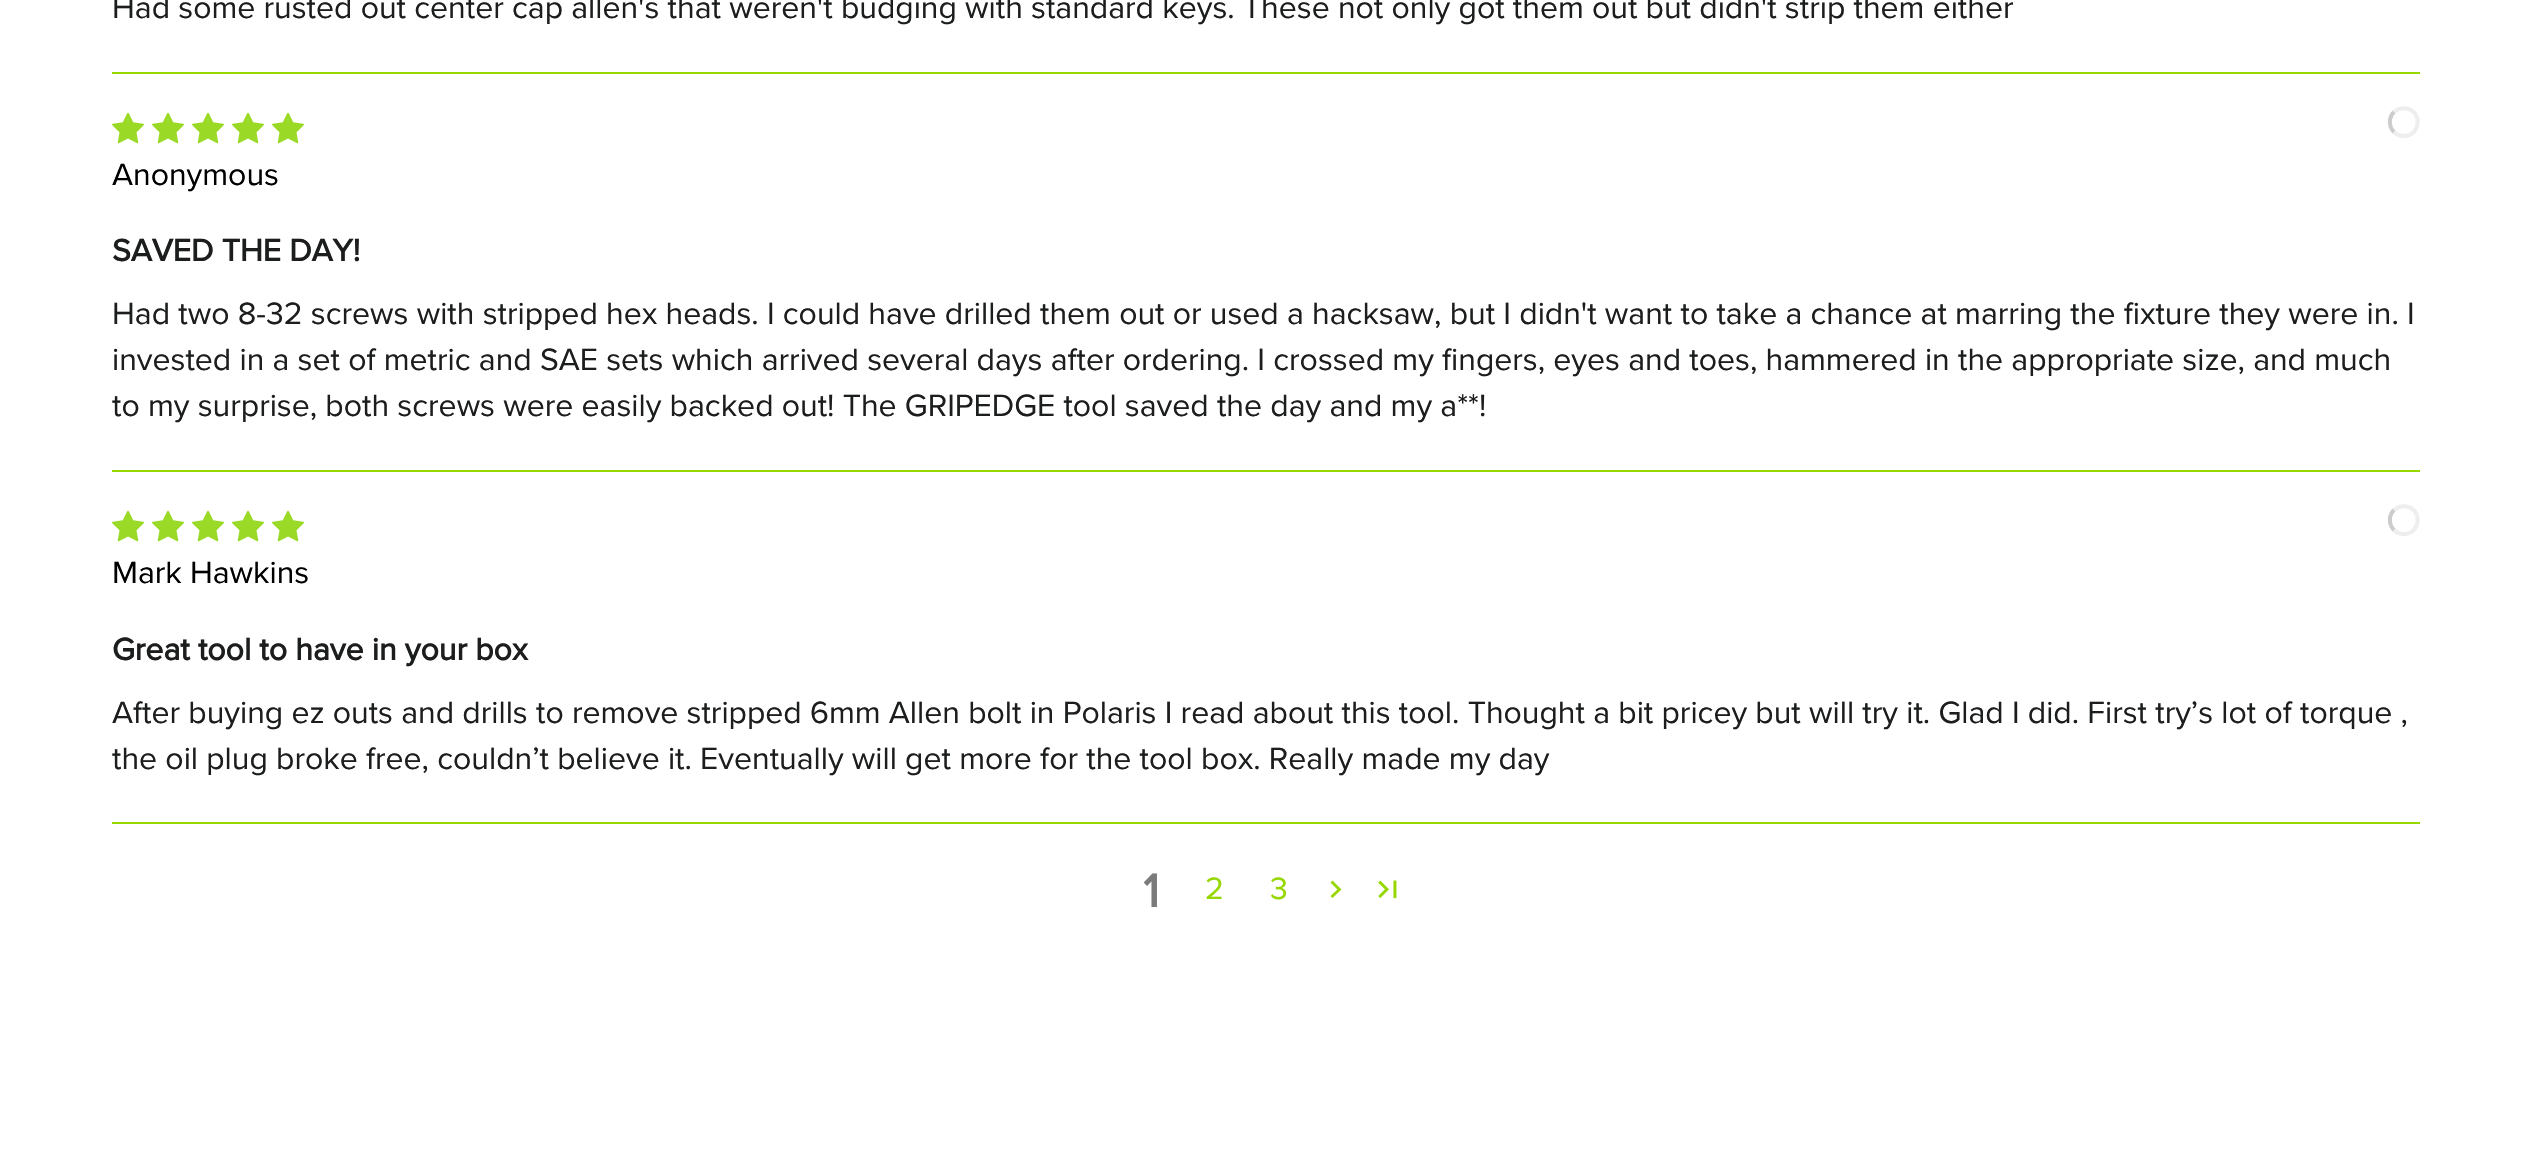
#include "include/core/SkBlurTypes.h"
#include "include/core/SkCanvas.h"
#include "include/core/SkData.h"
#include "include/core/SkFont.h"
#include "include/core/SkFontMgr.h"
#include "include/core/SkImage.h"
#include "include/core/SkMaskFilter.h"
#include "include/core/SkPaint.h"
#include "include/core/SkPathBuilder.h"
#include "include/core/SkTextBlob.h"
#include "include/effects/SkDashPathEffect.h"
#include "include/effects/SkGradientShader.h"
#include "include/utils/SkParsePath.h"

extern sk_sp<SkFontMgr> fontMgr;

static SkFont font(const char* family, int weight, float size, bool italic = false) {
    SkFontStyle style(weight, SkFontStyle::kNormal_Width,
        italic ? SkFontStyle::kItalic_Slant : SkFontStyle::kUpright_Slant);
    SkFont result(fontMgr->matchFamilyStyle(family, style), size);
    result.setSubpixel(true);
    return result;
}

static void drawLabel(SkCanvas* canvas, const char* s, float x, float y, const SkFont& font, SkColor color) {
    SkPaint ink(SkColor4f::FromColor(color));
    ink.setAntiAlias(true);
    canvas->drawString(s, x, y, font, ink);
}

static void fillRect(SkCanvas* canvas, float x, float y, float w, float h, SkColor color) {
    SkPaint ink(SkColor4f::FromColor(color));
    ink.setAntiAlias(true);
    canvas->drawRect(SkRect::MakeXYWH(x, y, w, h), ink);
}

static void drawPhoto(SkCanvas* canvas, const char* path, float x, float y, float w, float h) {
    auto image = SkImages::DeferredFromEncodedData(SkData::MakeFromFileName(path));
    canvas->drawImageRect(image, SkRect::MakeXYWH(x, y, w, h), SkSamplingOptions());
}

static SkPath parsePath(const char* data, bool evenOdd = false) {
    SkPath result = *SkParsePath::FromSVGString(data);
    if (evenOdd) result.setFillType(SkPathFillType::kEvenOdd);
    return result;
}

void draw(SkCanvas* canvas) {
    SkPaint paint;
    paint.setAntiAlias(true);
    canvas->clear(0xFFFFFFFF);
    SkFont font1 = font("Proxima Nova", 400, 32);
    drawLabel(canvas, "Had some rusted out center cap allen's that weren't budging with standard keys. These not only got them out but didn't strip them either", 112, 18, font1, 0xFF1C1D1D);
    fillRect(canvas, 112, 72, 2308, 2, 0xFF97D700);
    drawPhoto(canvas, "assets/img1.png", 112, 112, 32, 32);
    drawPhoto(canvas, "assets/img1.png", 152, 112, 32, 32);
    drawPhoto(canvas, "assets/img1.png", 192, 112, 32, 32);
    drawPhoto(canvas, "assets/img1.png", 232, 112, 32, 32);
    drawPhoto(canvas, "assets/img1.png", 272, 112, 32, 32);
    paint.setStroke(true);
    paint.setStrokeWidth(4);
    paint.setColor(0xFFEEEEEE);
    canvas->drawPath(parsePath("M2394 112C2397.5 109 2402 107.5 2406.5 108.5C2423 111.5 2420.5 136 2404 136C2400.5 136 2396.5 134.5 2394 132"), paint);
    paint.setColor(0xFFCCCCCC);
    canvas->drawPath(parsePath("M2394 132C2388.5 126.5 2388.5 117.5 2394 112"), paint);
    drawLabel(canvas, "Anonymous", 112, 185, font1, 0xFF000000);
    SkFont font2 = font("Proxima Nova", 700, 32);
    drawLabel(canvas, "SAVED THE DAY!", 112, 261, font2, 0xFF1C1D1D);
    drawLabel(canvas, "Had two 8-32 screws with stripped hex heads. I could have drilled them out or used a hacksaw, but I didn't want to take a chance at marring the fixture they were in. I", 112, 324, font1, 0xFF1C1D1D);
    drawLabel(canvas, "invested in a set of metric and SAE sets which arrived several days after ordering. I crossed my fingers, eyes and toes, hammered in the appropriate size, and much", 112, 370, font1, 0xFF1C1D1D);
    drawLabel(canvas, "to my surprise, both screws were easily backed out! The GRIPEDGE tool saved the day and my a**!", 112, 416, font1, 0xFF1C1D1D);
    fillRect(canvas, 112, 470, 2308, 2, 0xFF97D700);
    drawPhoto(canvas, "assets/img1.png", 112, 510, 32, 32);
    drawPhoto(canvas, "assets/img1.png", 152, 510, 32, 32);
    drawPhoto(canvas, "assets/img1.png", 192, 510, 32, 32);
    drawPhoto(canvas, "assets/img1.png", 232, 510, 32, 32);
    drawPhoto(canvas, "assets/img1.png", 272, 510, 32, 32);
    paint.setColor(0xFFEEEEEE);
    canvas->drawPath(parsePath("M2394 510C2397.5 507 2402 505.5 2406.5 506.5C2423 509.5 2420.5 534 2404 534C2400.5 534 2396.5 532.5 2394 530"), paint);
    paint.setColor(0xFFCCCCCC);
    canvas->drawPath(parsePath("M2394 530C2388.5 524.5 2388.5 515.5 2394 510"), paint);
    drawLabel(canvas, "Mark Hawkins", 112, 583, font1, 0xFF000000);
    drawLabel(canvas, "Great tool to have in your box", 112, 660, font2, 0xFF1C1D1D);
    drawLabel(canvas, "After buying ez outs and drills to remove stripped 6mm Allen bolt in Polaris I read about this tool. Thought a bit pricey but will try it. Glad I did. First try’s lot of torque ,", 112, 723, font1, 0xFF1C1D1D);
    drawLabel(canvas, "the oil plug broke free, couldn’t believe it. Eventually will get more for the tool box. Really made my day", 112, 769, font1, 0xFF1C1D1D);
    fillRect(canvas, 112, 822, 2308, 2, 0xFF97D700);
    SkFont font3 = font("Proxima Nova", 700, 48);
    drawLabel(canvas, "1", 1143, 907, font3, 0xFF7B7B7B);
    drawLabel(canvas, "2", 1205, 899, font1, 0xFF97D700);
    drawLabel(canvas, "3", 1270, 899, font1, 0xFF97D700);
    paint.setStroke(false);
    paint.setColor(0xFF97D700);
    canvas->drawPath(parsePath("M1332.5 880.5L1341.5 889.5L1332.5 898L1330.5 896L1337.5 889.5L1330.5 882.5Z"), paint);
    drawPhoto(canvas, "assets/img2.png", 1378, 880, 19, 19);
}
